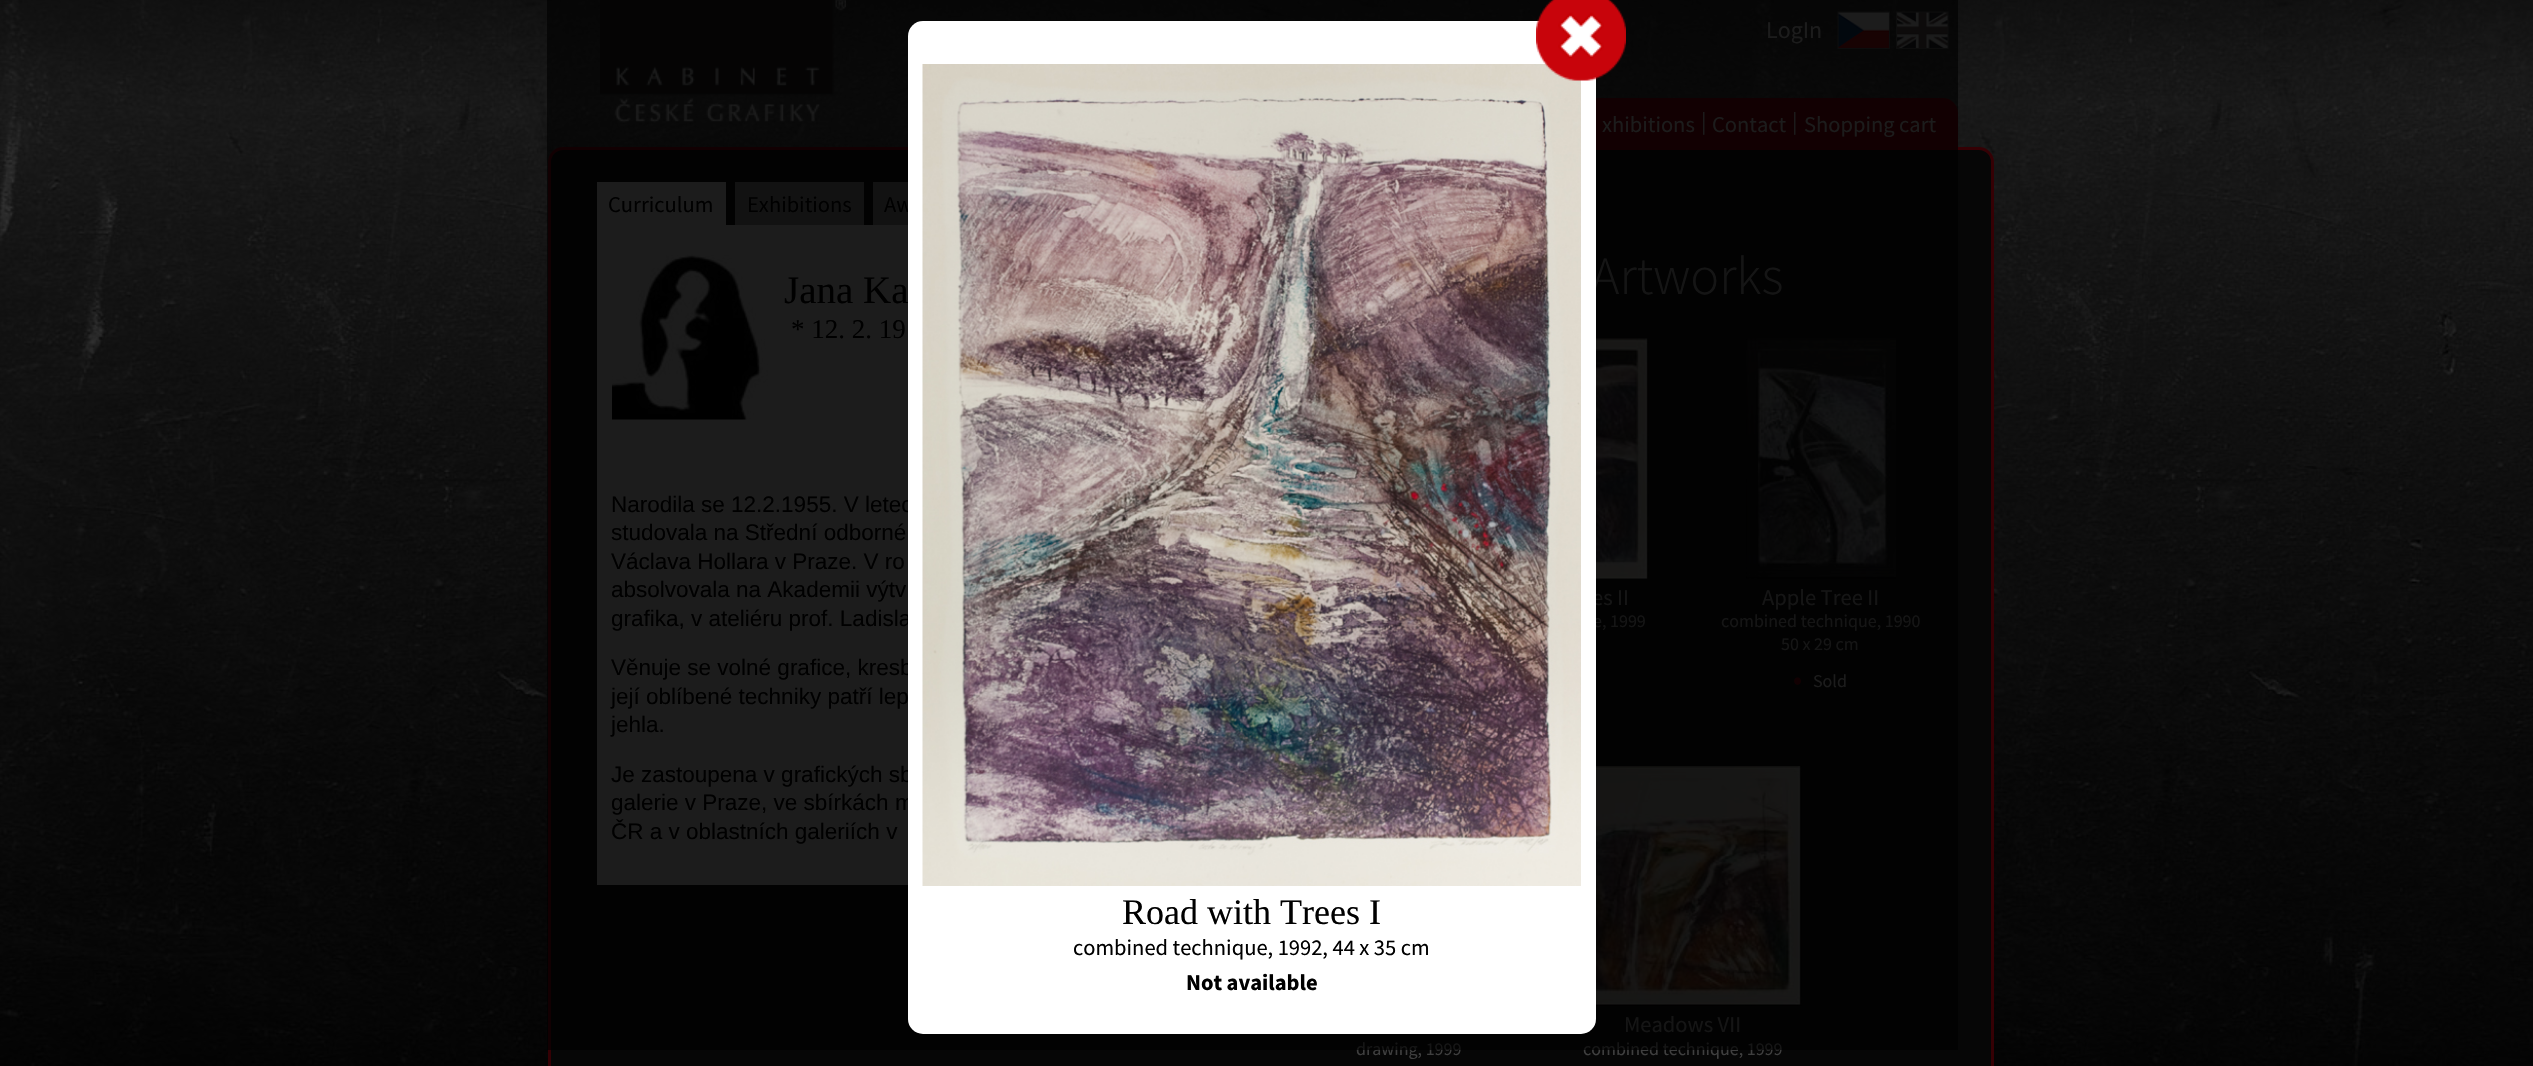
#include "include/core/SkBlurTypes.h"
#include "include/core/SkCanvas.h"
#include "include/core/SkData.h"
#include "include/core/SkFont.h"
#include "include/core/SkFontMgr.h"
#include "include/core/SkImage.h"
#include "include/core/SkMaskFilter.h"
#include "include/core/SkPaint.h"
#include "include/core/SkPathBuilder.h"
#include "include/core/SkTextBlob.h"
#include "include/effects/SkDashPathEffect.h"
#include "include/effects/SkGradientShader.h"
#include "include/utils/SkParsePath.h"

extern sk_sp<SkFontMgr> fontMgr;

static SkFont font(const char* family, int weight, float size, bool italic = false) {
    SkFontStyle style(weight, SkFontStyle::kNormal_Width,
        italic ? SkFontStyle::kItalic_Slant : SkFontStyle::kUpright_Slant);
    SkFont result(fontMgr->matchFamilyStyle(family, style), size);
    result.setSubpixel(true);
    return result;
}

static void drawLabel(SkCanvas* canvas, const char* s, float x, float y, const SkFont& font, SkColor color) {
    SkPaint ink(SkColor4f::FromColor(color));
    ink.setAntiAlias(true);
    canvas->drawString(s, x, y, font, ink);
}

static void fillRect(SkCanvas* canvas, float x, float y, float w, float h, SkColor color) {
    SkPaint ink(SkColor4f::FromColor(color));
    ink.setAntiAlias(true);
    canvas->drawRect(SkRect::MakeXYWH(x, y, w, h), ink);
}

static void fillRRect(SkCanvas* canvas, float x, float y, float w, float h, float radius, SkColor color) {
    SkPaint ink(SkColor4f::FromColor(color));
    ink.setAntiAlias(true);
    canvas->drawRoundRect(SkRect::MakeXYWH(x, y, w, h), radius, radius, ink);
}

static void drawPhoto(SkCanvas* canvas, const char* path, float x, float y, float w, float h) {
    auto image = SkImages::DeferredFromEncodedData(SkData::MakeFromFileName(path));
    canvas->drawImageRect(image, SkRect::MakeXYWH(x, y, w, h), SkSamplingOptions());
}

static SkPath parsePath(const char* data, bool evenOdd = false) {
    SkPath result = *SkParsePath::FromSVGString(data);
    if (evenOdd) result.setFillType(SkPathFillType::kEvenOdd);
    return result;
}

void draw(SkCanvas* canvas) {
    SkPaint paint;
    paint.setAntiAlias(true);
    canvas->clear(0xFFFFFFFF);
    drawPhoto(canvas, "assets/img1.png", 0, 0, 2533, 1066);
    drawPhoto(canvas, "assets/img2.png", 600, 0, 246, 123);
    SkFont font1 = font("Source Sans Pro", 400, 24);
    drawLabel(canvas, "LogIn", 1766, 38, font1, 0xFF545454);
    drawPhoto(canvas, "assets/img3.png", 1837, 11, 53, 38);
    drawPhoto(canvas, "assets/img4.png", 1896, 11, 53, 38);
    paint.setColor(0xFF060606);
    canvas->drawRoundRect(SkRect::MakeXYWH(549.5f, 148.5f, 1443, 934), 13.5f, 13.5f, paint);
    paint.setStroke(true);
    paint.setStrokeWidth(3);
    paint.setColor(0xFF350004);
    canvas->drawRoundRect(SkRect::MakeXYWH(549.5f, 148.5f, 1443, 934), 13.5f, 13.5f, paint);
    paint.setStroke(false);
    canvas->drawPath(parsePath("M948 99H1943C1950.5 99 1957 105.5 1957 113V149H934V113C934 105.5 940.5 99 948 99Z"), paint);
    paint.setStroke(true);
    paint.setStrokeWidth(2);
    canvas->drawPath(parsePath("M948 99H1943C1950.5 99 1957 105.5 1957 113V149H934V113C934 105.5 940.5 99 948 99Z"), paint);
    SkFont font2 = font("Source Sans Pro", 400, 22.5f);
    drawLabel(canvas, "xhibitions", 1602, 132, font2, 0xFF545454);
    drawLabel(canvas, "|", 1701, 129, font2, 0xFF545454);
    drawLabel(canvas, "Contact", 1712, 132, font2, 0xFF545454);
    drawLabel(canvas, "|", 1792, 129, font2, 0xFF545454);
    drawLabel(canvas, "Shopping cart", 1804, 132, font2, 0xFF545454);
    fillRect(canvas, 597, 182, 129, 43, 0xFF545454);
    drawLabel(canvas, "Curriculum", 608, 212, font2, 0xFF000000);
    fillRect(canvas, 735, 182, 129, 43, 0xFF363636);
    drawLabel(canvas, "Exhibitions", 747, 212, font2, 0xFF000000);
    fillRect(canvas, 873, 182, 35, 43, 0xFF363636);
    drawLabel(canvas, "Aw", 884, 212, font2, 0xFF000000);
    fillRect(canvas, 597, 225, 311, 660, 0xFF545454);
    drawPhoto(canvas, "assets/img5.png", 612, 254, 156, 166);
    SkFont font3 = font("Liberation Serif", 400, 39);
    drawLabel(canvas, "Jana Ka", 784, 303, font3, 0xFF000000);
    SkFont font4 = font("Liberation Serif", 400, 27);
    drawLabel(canvas, "* 12. 2. 19", 791, 338, font4, 0xFF000000);
    SkFont font5 = font("Liberation Sans", 400, 22.5f);
    drawLabel(canvas, "Narodila se 12.2.1955. V letec", 611, 512, font5, 0xFF000000);
    drawLabel(canvas, "studovala na Střední odborné", 611, 540, font5, 0xFF000000);
    drawLabel(canvas, "Václava Hollara v Praze. V ro", 611, 569, font5, 0xFF000000);
    drawLabel(canvas, "absolvovala na Akademii výtv", 611, 597, font5, 0xFF000000);
    drawLabel(canvas, "grafika, v ateliéru prof. Ladisla", 611, 626, font5, 0xFF000000);
    drawLabel(canvas, "Věnuje se volné grafice, kresb", 611, 675, font5, 0xFF000000);
    drawLabel(canvas, "její oblíbené techniky patří lep", 611, 704, font5, 0xFF000000);
    drawLabel(canvas, "jehla.", 611, 732, font5, 0xFF000000);
    drawLabel(canvas, "Je zastoupena v grafických sb", 611, 782, font5, 0xFF000000);
    drawLabel(canvas, "galerie v Praze, ve sbírkách m", 611, 810, font5, 0xFF000000);
    drawLabel(canvas, "ČR a v oblastních galeriích v", 611, 839, font5, 0xFF000000);
    SkFont font6 = font("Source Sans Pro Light", 300, 54);
    drawLabel(canvas, "Artworks", 1591, 294, font6, 0xFF3F3F3F);
    drawPhoto(canvas, "assets/img8.png", 1596, 338, 53, 241);
    drawLabel(canvas, "es II", 1592, 605, font2, 0xFF3F3F3F);
    SkFont font7 = font("Source Sans Pro", 400, 18);
    drawLabel(canvas, "e, 1999", 1593, 627, font7, 0xFF3F3F3F);
    drawPhoto(canvas, "assets/img9.png", 1746, 338, 150, 241);
    drawLabel(canvas, "Apple Tree II", 1762, 605, font2, 0xFF3F3F3F);
    drawLabel(canvas, "combined technique, 1990", 1721, 627, font7, 0xFF3F3F3F);
    drawLabel(canvas, "50 x 29 cm", 1781, 650, font7, 0xFF3F3F3F);
    SkFont font8 = font("Source Sans Pro", 400, 30);
    drawLabel(canvas, "•", 1793, 689, font8, 0xFF350004);
    drawLabel(canvas, "Sold", 1813, 687, font7, 0xFF545454);
    drawLabel(canvas, "drawing, 1999", 1356, 1055, font7, 0xFF3F3F3F);
    drawPhoto(canvas, "assets/img10.png", 1596, 766, 206, 240);
    drawLabel(canvas, "Meadows VII", 1624, 1032, font2, 0xFF3F3F3F);
    drawLabel(canvas, "combined technique, 1999", 1583, 1055, font7, 0xFF3F3F3F);
    fillRect(canvas, 547, 0, 1411, 1050, 0xAB000000);
    fillRRect(canvas, 908, 21, 688, 1013, 15, 0xFFFFFFFF);
    drawPhoto(canvas, "assets/img7.png", 922, 64, 659, 822);
    drawPhoto(canvas, "assets/img6.png", 1536, 0, 90, 81);
    SkFont font9 = font("Liberation Serif", 400, 36);
    drawLabel(canvas, "Road with Trees I", 1122, 924, font9, 0xFF000000);
    drawLabel(canvas, "combined technique, 1992, 44 x 35 cm", 1073, 955, font2, 0xFF000000);
    SkFont font10 = font("Source Sans Pro", 700, 22.5f);
    drawLabel(canvas, "Not available", 1186, 990, font10, 0xFF000000);
}
